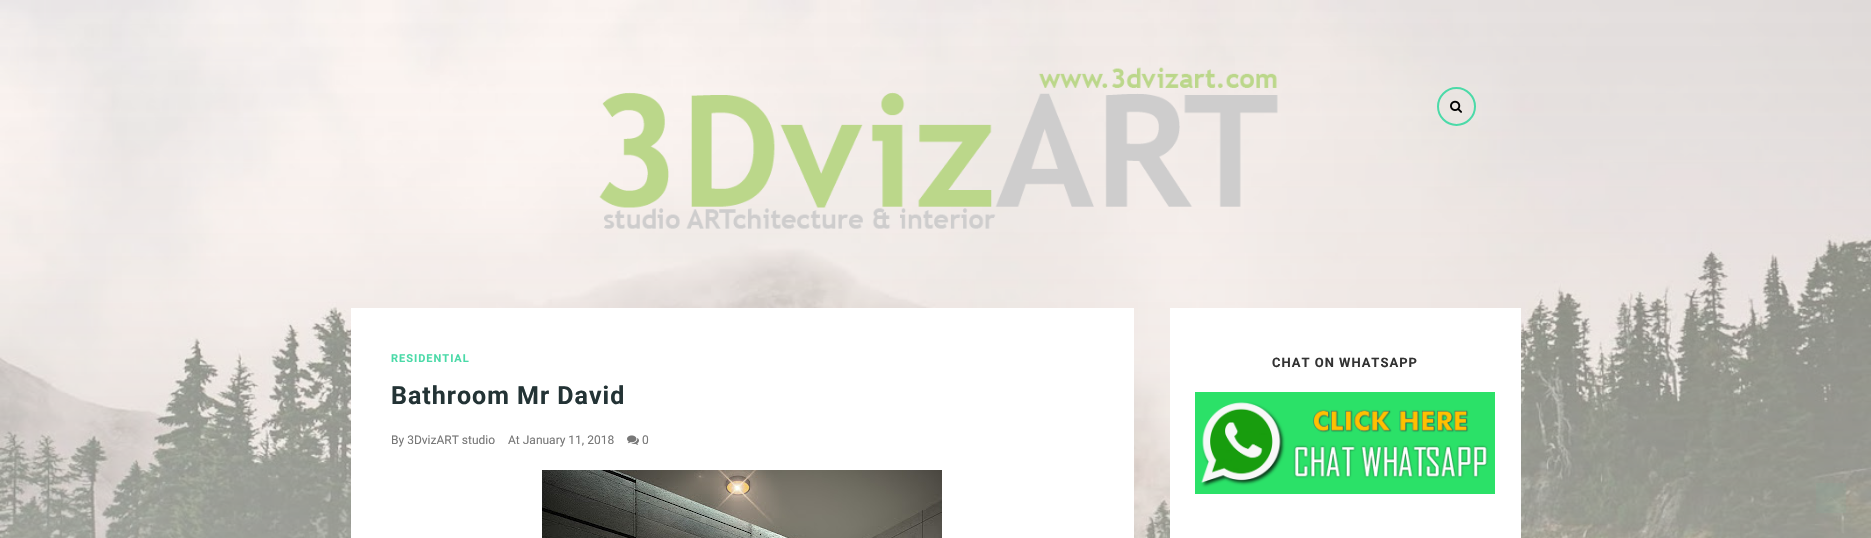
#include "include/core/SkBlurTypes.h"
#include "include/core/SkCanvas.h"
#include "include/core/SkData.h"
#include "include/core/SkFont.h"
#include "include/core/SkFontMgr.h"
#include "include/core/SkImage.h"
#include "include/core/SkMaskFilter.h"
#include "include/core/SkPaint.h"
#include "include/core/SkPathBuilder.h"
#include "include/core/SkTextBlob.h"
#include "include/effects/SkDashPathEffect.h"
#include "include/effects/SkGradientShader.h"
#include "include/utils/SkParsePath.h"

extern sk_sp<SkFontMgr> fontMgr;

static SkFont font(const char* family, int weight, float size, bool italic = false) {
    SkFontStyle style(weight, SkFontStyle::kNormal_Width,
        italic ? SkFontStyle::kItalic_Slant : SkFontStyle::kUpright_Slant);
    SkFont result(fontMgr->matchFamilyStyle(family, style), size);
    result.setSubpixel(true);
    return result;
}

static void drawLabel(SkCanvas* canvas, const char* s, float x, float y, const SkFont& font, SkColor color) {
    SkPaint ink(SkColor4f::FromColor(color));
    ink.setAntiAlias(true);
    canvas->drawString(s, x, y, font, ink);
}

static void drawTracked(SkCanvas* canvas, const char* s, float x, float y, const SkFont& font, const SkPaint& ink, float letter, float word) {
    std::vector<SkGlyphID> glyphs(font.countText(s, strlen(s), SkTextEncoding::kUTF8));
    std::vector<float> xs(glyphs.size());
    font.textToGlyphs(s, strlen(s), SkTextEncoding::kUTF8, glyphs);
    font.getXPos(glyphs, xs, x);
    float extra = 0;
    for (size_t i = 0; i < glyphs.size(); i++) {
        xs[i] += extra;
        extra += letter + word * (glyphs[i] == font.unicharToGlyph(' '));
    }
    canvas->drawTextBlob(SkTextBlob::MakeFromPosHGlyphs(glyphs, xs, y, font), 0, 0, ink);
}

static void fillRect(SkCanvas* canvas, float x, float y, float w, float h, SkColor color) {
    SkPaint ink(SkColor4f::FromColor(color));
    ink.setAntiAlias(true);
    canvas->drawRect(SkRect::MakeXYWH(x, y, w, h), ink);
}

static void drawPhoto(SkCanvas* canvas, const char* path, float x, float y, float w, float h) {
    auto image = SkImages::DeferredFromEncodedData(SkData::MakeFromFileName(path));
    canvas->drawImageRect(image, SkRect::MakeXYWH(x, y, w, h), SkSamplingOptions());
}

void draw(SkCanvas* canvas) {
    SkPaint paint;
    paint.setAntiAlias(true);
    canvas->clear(0xFFFFFFFF);
    drawPhoto(canvas, "assets/img1.png", 0, 0, 1871, 538);
    drawPhoto(canvas, "assets/img2.png", 599, 67, 679, 162);
    paint.setStroke(true);
    paint.setStrokeWidth(2);
    paint.setColor(0xFF4BDAA8);
    canvas->drawCircle(1456.5f, 106.5f, 18.5f, paint);
    drawPhoto(canvas, "assets/img3.png", 1450, 100, 12, 13);
    fillRect(canvas, 351, 308, 783, 230, 0xFFFFFFFF);
    SkFont font1 = font("Roboto", 700, 11);
    paint.setStroke(false);
    drawTracked(canvas, "RESIDENTIAL", 391, 362, font1, paint, 1, 0);
    SkFont font2 = font("Roboto", 700, 25);
    paint.setColor(0xFF233335);
    drawTracked(canvas, "Bathroom Mr David", 391, 404, font2, paint, 1, 0);
    SkFont font3 = font("Roboto", 400, 12);
    drawLabel(canvas, "By 3DvizART studio", 391, 444, font3, 0xFF777777);
    drawLabel(canvas, "At January 11, 2018", 508, 444, font3, 0xFF777777);
    drawPhoto(canvas, "assets/img4.png", 627, 435, 12, 10);
    drawLabel(canvas, "0", 642, 444, font3, 0xFF777777);
    drawPhoto(canvas, "assets/img5.png", 542, 470, 400, 68);
    fillRect(canvas, 1170, 308, 351, 230, 0xFFFFFFFF);
    SkFont font4 = font("Roboto", 700, 13);
    paint.setColor(0xFF333333);
    drawTracked(canvas, "CHAT ON WHATSAPP", 1272, 367, font4, paint, 1, 0);
    drawPhoto(canvas, "assets/img6.png", 1195, 392, 300, 102);
    fillRect(canvas, 1816, 483, 30, 30, 0x0D4BDAA8);
    drawPhoto(canvas, "assets/img7.png", 1827, 497, 8, 4);
}
